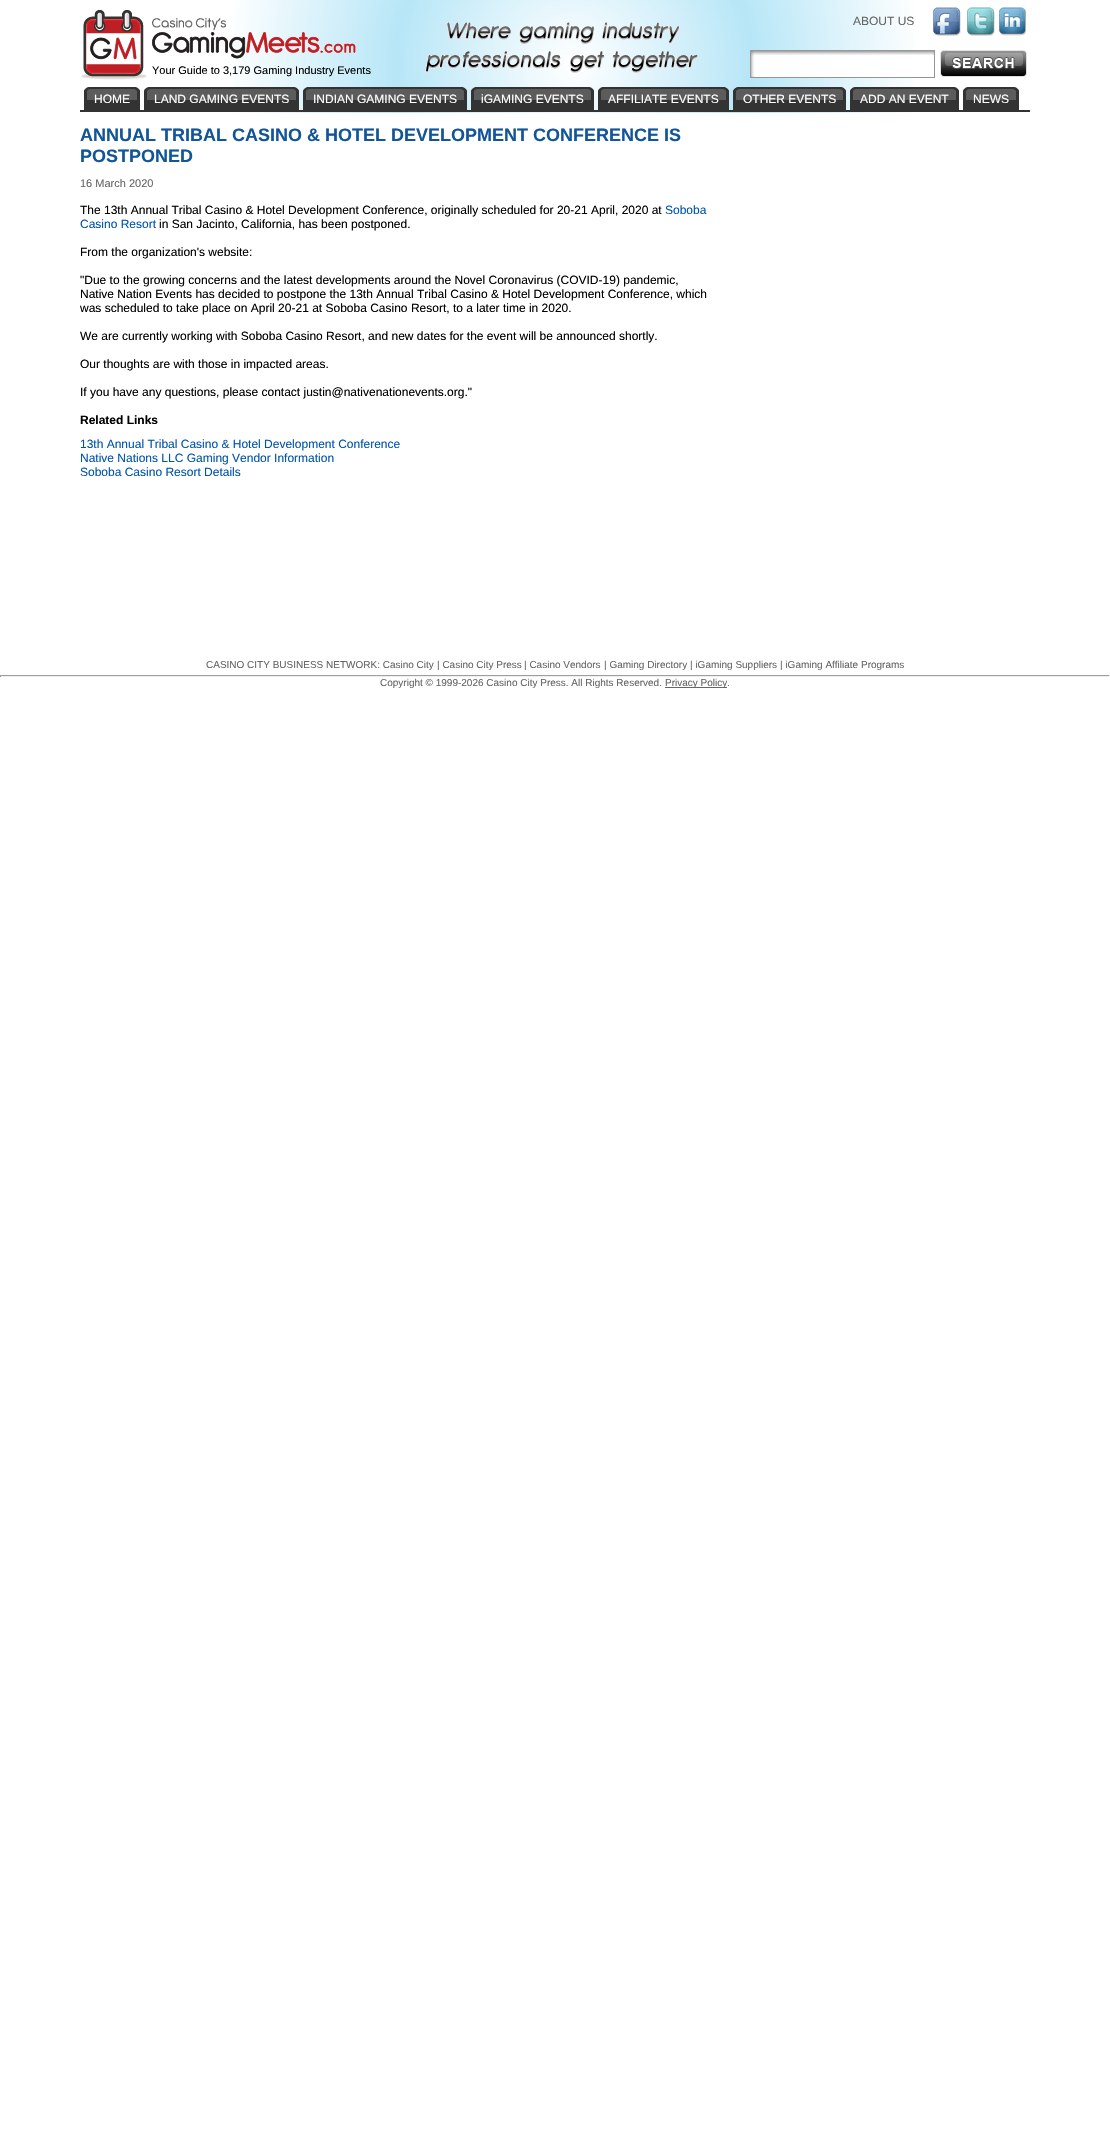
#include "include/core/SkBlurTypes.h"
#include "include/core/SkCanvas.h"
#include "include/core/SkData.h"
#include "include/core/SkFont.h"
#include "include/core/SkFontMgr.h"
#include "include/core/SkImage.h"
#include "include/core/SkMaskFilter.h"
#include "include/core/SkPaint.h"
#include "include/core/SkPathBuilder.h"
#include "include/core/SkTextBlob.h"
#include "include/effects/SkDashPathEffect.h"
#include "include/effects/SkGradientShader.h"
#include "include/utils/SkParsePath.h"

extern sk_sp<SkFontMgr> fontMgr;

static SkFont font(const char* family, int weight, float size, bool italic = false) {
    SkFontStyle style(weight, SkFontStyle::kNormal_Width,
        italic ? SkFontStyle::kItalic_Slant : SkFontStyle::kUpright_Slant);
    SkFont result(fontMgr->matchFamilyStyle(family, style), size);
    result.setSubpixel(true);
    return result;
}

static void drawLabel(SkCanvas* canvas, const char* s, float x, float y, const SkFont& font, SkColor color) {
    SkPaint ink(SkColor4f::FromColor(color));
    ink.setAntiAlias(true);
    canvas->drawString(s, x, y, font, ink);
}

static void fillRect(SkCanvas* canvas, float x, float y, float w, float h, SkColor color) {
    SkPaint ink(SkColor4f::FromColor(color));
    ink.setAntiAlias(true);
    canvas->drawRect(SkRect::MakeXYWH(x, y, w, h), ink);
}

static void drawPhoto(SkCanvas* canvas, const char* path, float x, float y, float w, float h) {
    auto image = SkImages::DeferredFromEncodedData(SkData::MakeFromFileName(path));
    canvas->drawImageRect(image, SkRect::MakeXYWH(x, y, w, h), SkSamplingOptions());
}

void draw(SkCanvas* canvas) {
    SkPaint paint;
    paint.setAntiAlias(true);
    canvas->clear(0xFFFFFFFF);
    drawPhoto(canvas, "assets/img1.png", 233, 0, 681, 113);
    drawPhoto(canvas, "assets/img2.png", 81, 10, 275, 70);
    SkFont font1 = font("Liberation Sans", 400, 12);
    drawLabel(canvas, "ABOUT US", 853, 25, font1, 0xFF666666);
    drawPhoto(canvas, "assets/img3.png", 933, 7, 28, 29);
    drawPhoto(canvas, "assets/img4.png", 967, 7, 28, 29);
    drawPhoto(canvas, "assets/img5.png", 999, 7, 27, 29);
    SkFont font2 = font("Liberation Sans", 400, 11);
    drawLabel(canvas, "Your Guide to 3,179 Gaming Industry Events", 152, 74, font2, 0xFF000000);
    drawPhoto(canvas, "assets/img6.png", 425, 22, 273, 51);
    drawPhoto(canvas, "assets/img7.png", 750, 50, 185, 28);
    drawPhoto(canvas, "assets/img8.png", 940, 50, 87, 27);
    fillRect(canvas, 755, 55, 179, 22, 0xFFFFFFFF);
    drawPhoto(canvas, "assets/img9.png", 84, 87, 6, 23);
    drawPhoto(canvas, "assets/img10.png", 90, 87, 44, 23);
    drawLabel(canvas, "HOME", 94, 103, font1, 0xFFFFFFFF);
    drawPhoto(canvas, "assets/img11.png", 134, 87, 6, 23);
    drawPhoto(canvas, "assets/img9.png", 144, 87, 6, 23);
    drawPhoto(canvas, "assets/img12.png", 150, 87, 143, 23);
    drawLabel(canvas, "LAND GAMING EVENTS", 154, 103, font1, 0xFFFFFFFF);
    drawPhoto(canvas, "assets/img13.png", 293, 87, 6, 23);
    drawPhoto(canvas, "assets/img14.png", 303, 87, 6, 23);
    drawPhoto(canvas, "assets/img15.png", 309, 87, 152, 23);
    drawLabel(canvas, "INDIAN GAMING EVENTS", 313, 103, font1, 0xFFFFFFFF);
    drawPhoto(canvas, "assets/img16.png", 461, 87, 6, 23);
    drawPhoto(canvas, "assets/img17.png", 471, 87, 6, 23);
    drawPhoto(canvas, "assets/img18.png", 477, 87, 111, 23);
    drawLabel(canvas, "iGAMING EVENTS", 481, 103, font1, 0xFFFFFFFF);
    drawPhoto(canvas, "assets/img19.png", 588, 87, 6, 23);
    drawPhoto(canvas, "assets/img20.png", 598, 87, 6, 23);
    drawPhoto(canvas, "assets/img21.png", 604, 87, 119, 23);
    drawLabel(canvas, "AFFILIATE EVENTS", 608, 103, font1, 0xFFFFFFFF);
    drawPhoto(canvas, "assets/img22.png", 723, 87, 6, 23);
    drawPhoto(canvas, "assets/img23.png", 733, 87, 6, 23);
    drawPhoto(canvas, "assets/img24.png", 739, 87, 101, 23);
    drawLabel(canvas, "OTHER EVENTS", 743, 103, font1, 0xFFFFFFFF);
    drawPhoto(canvas, "assets/img25.png", 840, 87, 6, 23);
    drawPhoto(canvas, "assets/img26.png", 850, 87, 6, 23);
    drawPhoto(canvas, "assets/img27.png", 856, 87, 97, 23);
    drawLabel(canvas, "ADD AN EVENT", 860, 103, font1, 0xFFFFFFFF);
    drawPhoto(canvas, "assets/img11.png", 953, 87, 6, 23);
    drawPhoto(canvas, "assets/img9.png", 963, 87, 6, 23);
    drawPhoto(canvas, "assets/img10.png", 969, 87, 44, 23);
    drawLabel(canvas, "NEWS", 973, 103, font1, 0xFFFFFFFF);
    drawPhoto(canvas, "assets/img11.png", 1013, 87, 6, 23);
    fillRect(canvas, 80, 110, 950, 2, 0xFF333333);
    SkFont font3 = font("Liberation Sans", 700, 18);
    drawLabel(canvas, "ANNUAL TRIBAL CASINO & HOTEL DEVELOPMENT CONFERENCE IS", 80, 141, font3, 0xFF125699);
    drawLabel(canvas, "POSTPONED", 80, 162, font3, 0xFF125699);
    drawLabel(canvas, "16 March 2020", 80, 187, font2, 0xFF666666);
    drawLabel(canvas, "The 13th Annual Tribal Casino & Hotel Development Conference, originally scheduled for 20-21 April, 2020 at", 80, 214, font1, 0xFF000000);
    drawLabel(canvas, "Soboba", 665, 214, font1, 0xFF0054AE);
    drawLabel(canvas, "Casino Resort", 80, 228, font1, 0xFF0054AE);
    drawLabel(canvas, "in San Jacinto, California, has been postponed.", 159, 228, font1, 0xFF000000);
    drawLabel(canvas, "From the organization's website:", 80, 256, font1, 0xFF000000);
    drawLabel(canvas, "\"Due to the growing concerns and the latest developments around the Novel Coronavirus (COVID-19) pandemic,", 80, 284, font1, 0xFF000000);
    drawLabel(canvas, "Native Nation Events has decided to postpone the 13th Annual Tribal Casino & Hotel Development Conference, which", 80, 298, font1, 0xFF000000);
    drawLabel(canvas, "was scheduled to take place on April 20-21 at Soboba Casino Resort, to a later time in 2020.", 80, 312, font1, 0xFF000000);
    drawLabel(canvas, "We are currently working with Soboba Casino Resort, and new dates for the event will be announced shortly.", 80, 340, font1, 0xFF000000);
    drawLabel(canvas, "Our thoughts are with those in impacted areas.", 80, 368, font1, 0xFF000000);
    drawLabel(canvas, "If you have any questions, please contact justin@nativenationevents.org.\"", 80, 396, font1, 0xFF000000);
    SkFont font4 = font("Liberation Sans", 700, 12);
    drawLabel(canvas, "Related Links", 80, 424, font4, 0xFF000000);
    drawLabel(canvas, "13th Annual Tribal Casino & Hotel Development Conference", 80, 448, font1, 0xFF0054AE);
    drawLabel(canvas, "Native Nations LLC Gaming Vendor Information", 80, 462, font1, 0xFF0054AE);
    drawLabel(canvas, "Soboba Casino Resort Details", 80, 476, font1, 0xFF0054AE);
    SkFont font5 = font("Liberation Sans", 400, 10);
    drawLabel(canvas, "CASINO CITY BUSINESS NETWORK: Casino City", 206, 668, font5, 0xFF666666);
    drawLabel(canvas, "| Casino City Press", 437, 668, font5, 0xFF666666);
    drawLabel(canvas, "| Casino Vendors", 524, 668, font5, 0xFF666666);
    drawLabel(canvas, "| Gaming Directory", 604, 668, font5, 0xFF666666);
    drawLabel(canvas, "| iGaming Suppliers", 690, 668, font5, 0xFF666666);
    drawLabel(canvas, "| iGaming Affiliate Programs", 780, 668, font5, 0xFF666666);
    fillRect(canvas, 0, 675, 1110, 1, 0xFF9F9F9F);
    fillRect(canvas, 1109, 675, 1, 2, 0xFFEEEEEE);
    fillRect(canvas, 0, 676, 1110, 1, 0xFFEEEEEE);
    fillRect(canvas, 0, 675, 1, 2, 0xFF9F9F9F);
    drawLabel(canvas, "Copyright © 1999-2026 Casino City Press. All Rights Reserved.", 380, 686, font5, 0xFF666666);
    fillRect(canvas, 665, 687, 62, 1, 0xFF666666);
    drawLabel(canvas, "Privacy Policy", 665, 686, font5, 0xFF666666);
    drawLabel(canvas, ".", 727, 686, font5, 0xFF666666);
}
